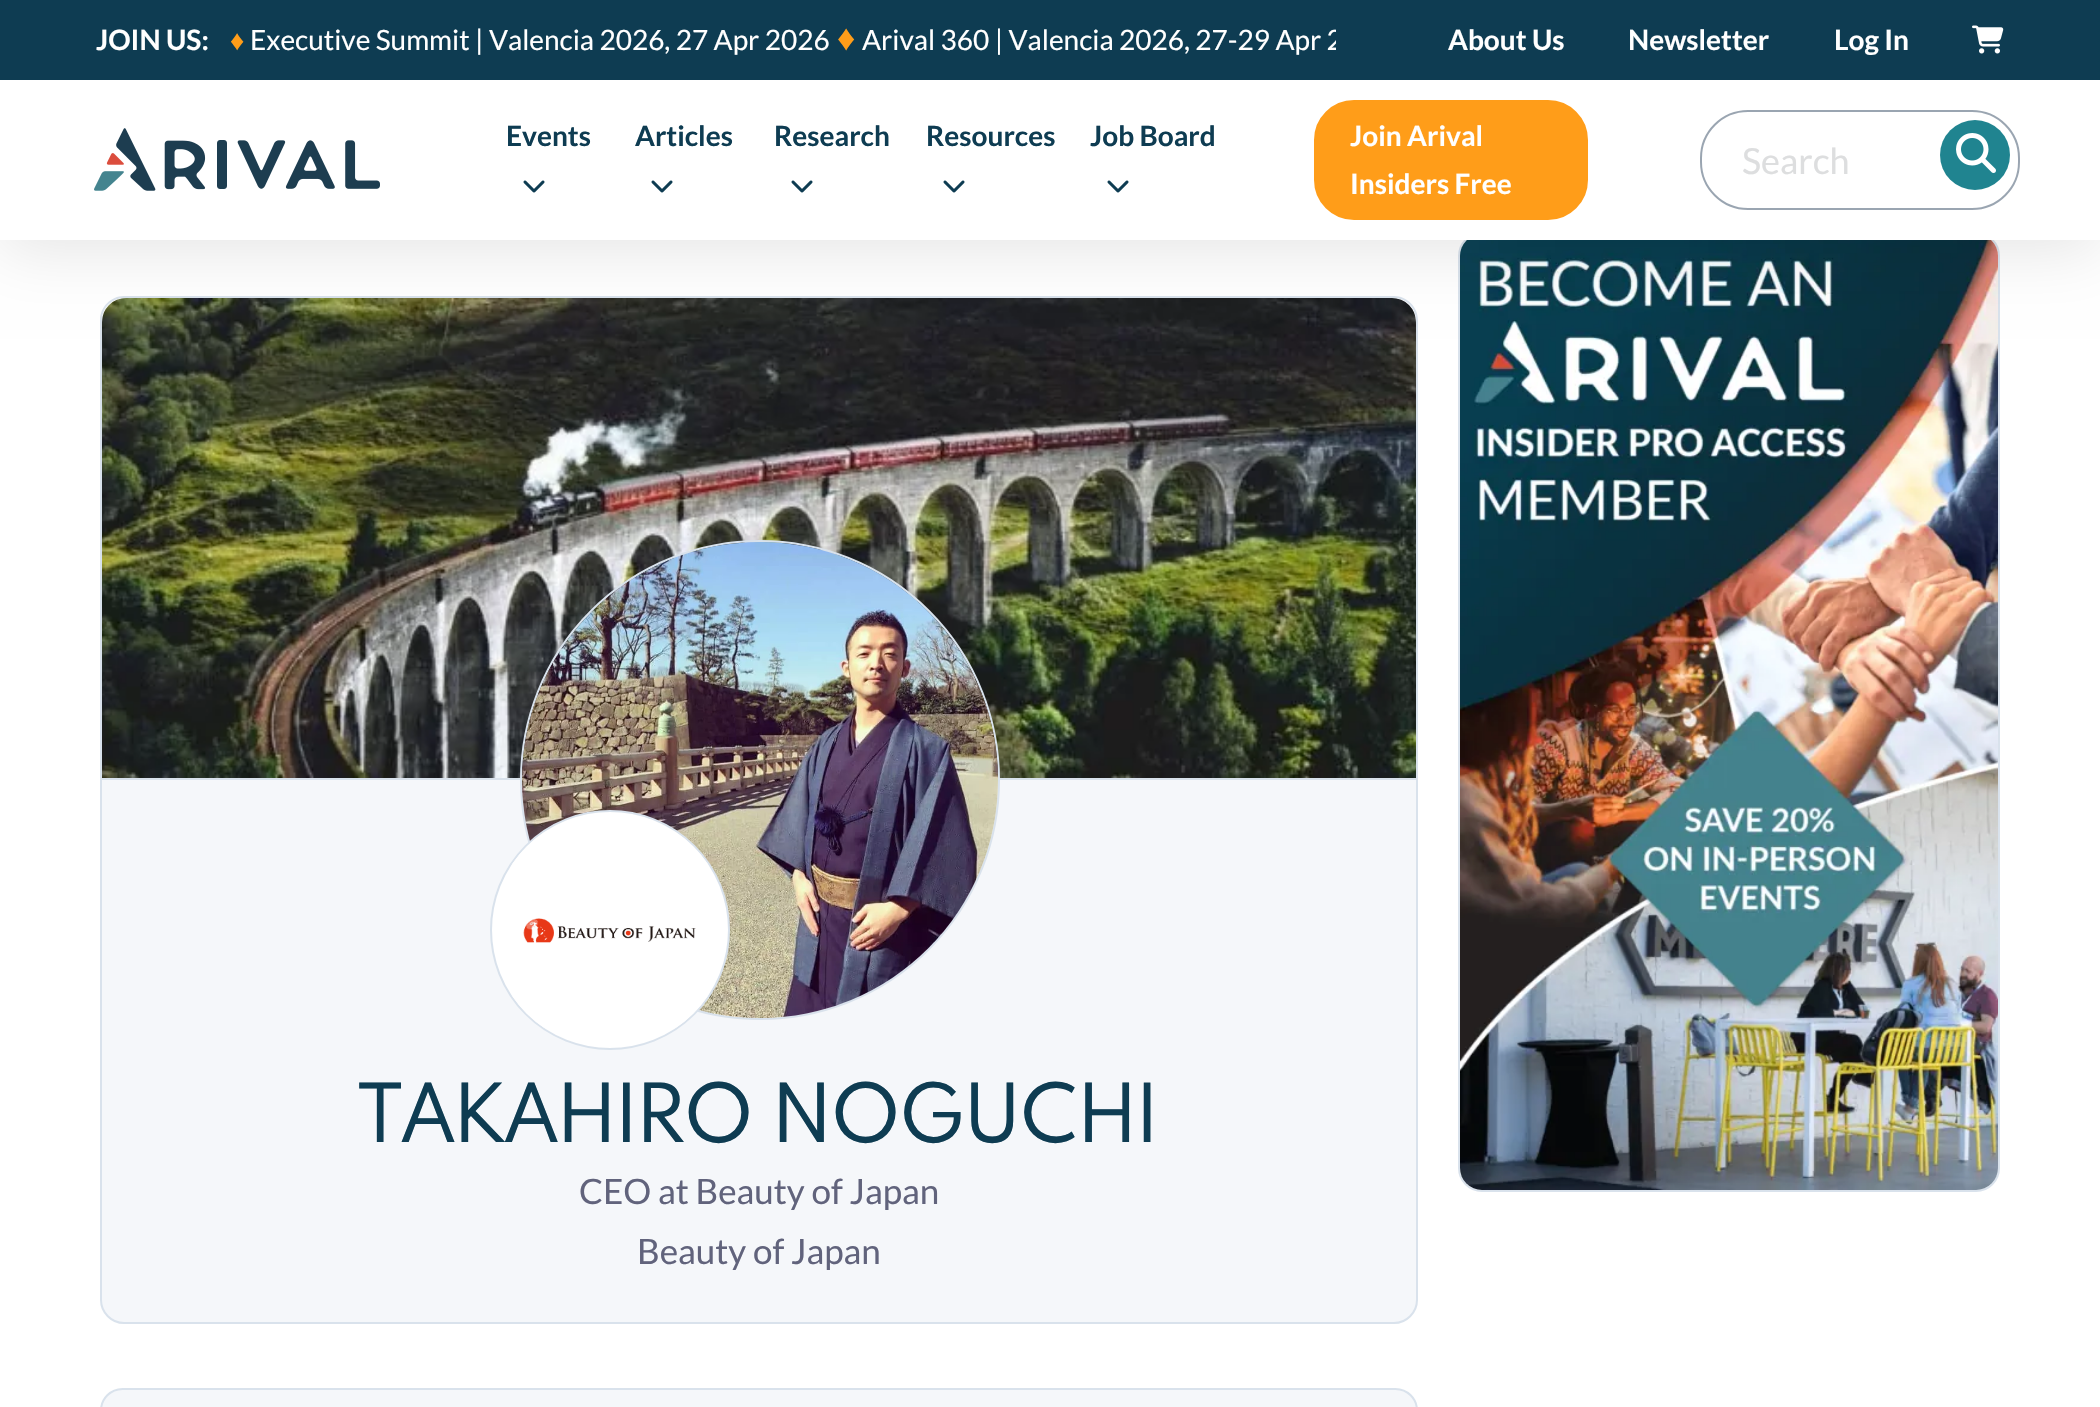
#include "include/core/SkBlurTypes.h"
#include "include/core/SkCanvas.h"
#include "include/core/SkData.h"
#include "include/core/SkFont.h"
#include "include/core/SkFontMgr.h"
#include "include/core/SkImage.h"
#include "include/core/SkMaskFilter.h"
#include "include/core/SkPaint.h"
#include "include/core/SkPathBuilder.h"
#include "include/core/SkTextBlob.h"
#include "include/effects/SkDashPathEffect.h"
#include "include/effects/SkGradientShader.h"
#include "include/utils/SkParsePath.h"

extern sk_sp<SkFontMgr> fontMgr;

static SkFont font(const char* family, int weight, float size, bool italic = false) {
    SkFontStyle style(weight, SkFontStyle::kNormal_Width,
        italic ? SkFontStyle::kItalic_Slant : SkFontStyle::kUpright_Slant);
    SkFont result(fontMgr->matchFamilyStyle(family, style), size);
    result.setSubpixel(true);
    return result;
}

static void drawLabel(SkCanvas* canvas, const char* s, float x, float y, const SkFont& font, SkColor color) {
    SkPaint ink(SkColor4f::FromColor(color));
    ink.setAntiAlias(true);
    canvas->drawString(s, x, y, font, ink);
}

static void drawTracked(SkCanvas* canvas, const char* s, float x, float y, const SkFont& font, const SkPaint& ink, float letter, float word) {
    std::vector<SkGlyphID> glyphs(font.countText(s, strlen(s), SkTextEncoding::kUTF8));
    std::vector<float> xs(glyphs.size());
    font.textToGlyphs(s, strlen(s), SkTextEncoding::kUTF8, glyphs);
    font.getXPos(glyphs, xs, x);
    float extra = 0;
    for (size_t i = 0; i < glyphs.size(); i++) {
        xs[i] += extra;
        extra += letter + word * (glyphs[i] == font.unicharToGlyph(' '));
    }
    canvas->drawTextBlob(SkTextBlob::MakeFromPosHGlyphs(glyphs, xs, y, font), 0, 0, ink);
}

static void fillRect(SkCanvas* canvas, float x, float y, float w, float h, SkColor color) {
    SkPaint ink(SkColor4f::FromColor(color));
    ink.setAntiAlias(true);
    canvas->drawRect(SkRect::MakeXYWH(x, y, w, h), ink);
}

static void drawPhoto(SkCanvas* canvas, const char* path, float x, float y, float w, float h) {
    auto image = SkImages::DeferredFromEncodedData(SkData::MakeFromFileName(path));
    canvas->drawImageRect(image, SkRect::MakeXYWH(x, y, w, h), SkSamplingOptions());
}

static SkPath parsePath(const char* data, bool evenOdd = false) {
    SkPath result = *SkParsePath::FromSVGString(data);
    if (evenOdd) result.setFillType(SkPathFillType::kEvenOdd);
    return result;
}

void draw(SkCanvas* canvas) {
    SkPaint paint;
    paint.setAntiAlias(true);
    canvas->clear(0xFFFFFFFF);
    drawPhoto(canvas, "assets/img5.png", 102, 298, 1314, 480);
    paint.setColor(0xFFD9E2EC);
    canvas->drawPath(parsePath("M124 296H1394C1407 296 1418 307 1418 320V778H100V320C100 307 111 296 124 296ZM124 298H1394C1406 298 1416 308 1416 320V778H102V320C102 308 112 298 124 298Z", true), paint);
    paint.setStroke(true);
    paint.setStrokeWidth(2);
    canvas->drawRoundRect(SkRect::MakeXYWH(1459, 233, 540, 958), 23, 23, paint);
    drawPhoto(canvas, "assets/img8.png", 1460, 240, 538, 950);
    paint.setStroke(false);
    paint.setColor(0x1A000000);
    paint.setMaskFilter(SkMaskFilter::MakeBlur(kNormal_SkBlurStyle, 30));
    canvas->drawRect(SkRect::MakeXYWH(0, 10, 2100, 240), paint);
    paint.setMaskFilter(nullptr);
    fillRect(canvas, 0, 0, 2100, 80, 0xFF0E3C52);
    SkFont font1 = font("Lato", 700, 28);
    drawLabel(canvas, "JOIN US:", 96, 50, font1, 0xFFFFFFFF);
    SkFont font2 = font("Liberation Sans", 400, 28);
    drawLabel(canvas, "♦", 230, 50, font2, 0xFFFF9D19);
    SkFont font3 = font("Lato", 400, 28);
    drawLabel(canvas, "Executive Summit | Valencia 2026, 27 Apr 2026", 250, 50, font3, 0xFFFFFFFF);
    SkFont font4 = font("Liberation Sans", 400, 36);
    drawLabel(canvas, "♦", 837, 50, font4, 0xFFFF9D19);
    canvas->save();
    canvas->clipRect(SkRect::MakeXYWH(64, 0, 1272, 80));
    drawLabel(canvas, "Arival 360 | Valencia 2026, 27-29 Apr 2", 862, 50, font3, 0xFFFFFFFF);
    canvas->restore();
    drawLabel(canvas, "About Us", 1448, 50, font1, 0xFFFFFFFF);
    drawLabel(canvas, "Newsletter", 1628, 50, font1, 0xFFFFFFFF);
    drawLabel(canvas, "Log In", 1834, 50, font1, 0xFFFFFFFF);
    drawPhoto(canvas, "assets/img1.png", 1972, 25, 32, 29);
    fillRect(canvas, 0, 80, 2100, 160, 0xFFFFFFFF);
    drawPhoto(canvas, "assets/img2.png", 94, 128, 286, 63);
    drawLabel(canvas, "Events", 506, 146, font1, 0xFF0E3C52);
    drawPhoto(canvas, "assets/img3.png", 523, 180, 22, 13);
    drawLabel(canvas, "Articles", 635, 146, font1, 0xFF0E3C52);
    drawPhoto(canvas, "assets/img3.png", 651, 180, 22, 13);
    drawLabel(canvas, "Research", 774, 146, font1, 0xFF0E3C52);
    drawPhoto(canvas, "assets/img3.png", 791, 180, 22, 13);
    drawLabel(canvas, "Resources", 926, 146, font1, 0xFF0E3C52);
    drawPhoto(canvas, "assets/img3.png", 943, 180, 22, 13);
    drawLabel(canvas, "Job Board", 1090, 146, font1, 0xFF0E3C52);
    drawPhoto(canvas, "assets/img3.png", 1107, 180, 22, 13);
    paint.setColor(0xFFFF9D19);
    canvas->drawRoundRect(SkRect::MakeXYWH(1316, 102, 270, 116), 38, 38, paint);
    paint.setStroke(true);
    paint.setStrokeWidth(4);
    canvas->drawRoundRect(SkRect::MakeXYWH(1316, 102, 270, 116), 38, 38, paint);
    drawLabel(canvas, "Join Arival", 1350, 146, font1, 0xFFFFFFFF);
    drawLabel(canvas, "Insiders Free", 1350, 194, font1, 0xFFFFFFFF);
    paint.setStrokeWidth(2);
    paint.setColor(0xFF9AA5B1);
    canvas->drawRoundRect(SkRect::MakeXYWH(1701, 111, 318, 98), 47, 47, paint);
    SkFont font5 = font("Lato", 400, 36);
    drawLabel(canvas, "Search", 1742, 174, font5, 0xFFDDDEDF);
    paint.setStroke(false);
    paint.setColor(0xFF208490);
    canvas->drawCircle(1975, 155, 35, paint);
    drawPhoto(canvas, "assets/img4.png", 1956, 133, 40, 40);
    paint.setColor(0xFFF5F7FA);
    canvas->drawPath(parsePath("M101 779H1417V1300C1417 1312.5 1406.5 1323 1394 1323H124C111.5 1323 101 1312.5 101 1300Z"), paint);
    paint.setStroke(true);
    paint.setColor(0xFFD9E2EC);
    canvas->drawPath(parsePath("M101 779H1417V1300C1417 1312.5 1406.5 1323 1394 1323H124C111.5 1323 101 1312.5 101 1300Z"), paint);
    canvas->drawCircle(760, 780, 239, paint);
    drawPhoto(canvas, "assets/img6.png", 522, 542, 476, 476);
    paint.setStroke(false);
    paint.setColor(0xFFFFFFFF);
    canvas->drawCircle(610, 930, 119, paint);
    paint.setStroke(true);
    paint.setColor(0xFFD9E2EC);
    canvas->drawCircle(610, 930, 119, paint);
    canvas->save();
    canvas->clipPath(parsePath("M610 812C675 812 728 865 728 930C728 995 675 1048 610 1048C545 1048 492 995 492 930C492 865 545 812 610 812Z"), true);
    fillRect(canvas, 512, 832, 196, 196, 0xFFFFFFFF);
    canvas->restore();
    drawPhoto(canvas, "assets/img7.png", 523, 918, 173, 25);
    SkFont font6 = font("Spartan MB", 400, 72);
    paint.setStroke(false);
    paint.setColor(0xFF0E3C52);
    drawTracked(canvas, "TAKAHIRO NOGUCHI", 359, 1142, font6, paint, 1, 0);
    SkFont font7 = font("Lato", 400, 35);
    drawLabel(canvas, "CEO at Beauty of Japan", 579, 1204, font7, 0xFF61637C);
    drawLabel(canvas, "Beauty of Japan", 637, 1264, font7, 0xFF61637C);
    paint.setColor(0xFFF5F7FA);
    canvas->drawRoundRect(SkRect::MakeXYWH(101, 1389, 1316, 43), 23, 23, paint);
    paint.setStroke(true);
    paint.setColor(0xFFD9E2EC);
    canvas->drawRoundRect(SkRect::MakeXYWH(101, 1389, 1316, 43), 23, 23, paint);
}
